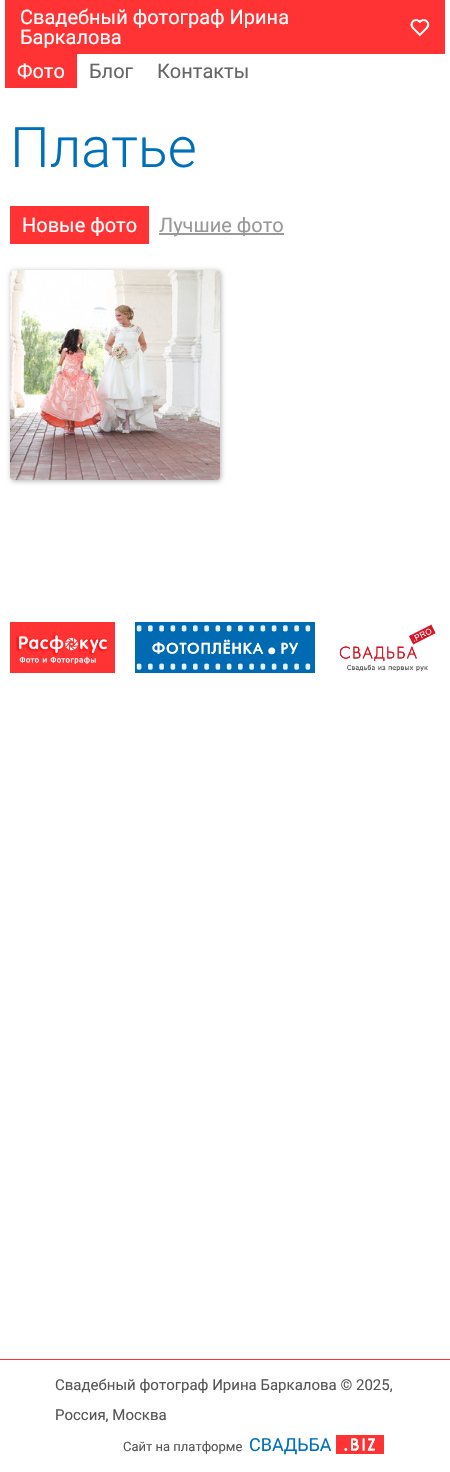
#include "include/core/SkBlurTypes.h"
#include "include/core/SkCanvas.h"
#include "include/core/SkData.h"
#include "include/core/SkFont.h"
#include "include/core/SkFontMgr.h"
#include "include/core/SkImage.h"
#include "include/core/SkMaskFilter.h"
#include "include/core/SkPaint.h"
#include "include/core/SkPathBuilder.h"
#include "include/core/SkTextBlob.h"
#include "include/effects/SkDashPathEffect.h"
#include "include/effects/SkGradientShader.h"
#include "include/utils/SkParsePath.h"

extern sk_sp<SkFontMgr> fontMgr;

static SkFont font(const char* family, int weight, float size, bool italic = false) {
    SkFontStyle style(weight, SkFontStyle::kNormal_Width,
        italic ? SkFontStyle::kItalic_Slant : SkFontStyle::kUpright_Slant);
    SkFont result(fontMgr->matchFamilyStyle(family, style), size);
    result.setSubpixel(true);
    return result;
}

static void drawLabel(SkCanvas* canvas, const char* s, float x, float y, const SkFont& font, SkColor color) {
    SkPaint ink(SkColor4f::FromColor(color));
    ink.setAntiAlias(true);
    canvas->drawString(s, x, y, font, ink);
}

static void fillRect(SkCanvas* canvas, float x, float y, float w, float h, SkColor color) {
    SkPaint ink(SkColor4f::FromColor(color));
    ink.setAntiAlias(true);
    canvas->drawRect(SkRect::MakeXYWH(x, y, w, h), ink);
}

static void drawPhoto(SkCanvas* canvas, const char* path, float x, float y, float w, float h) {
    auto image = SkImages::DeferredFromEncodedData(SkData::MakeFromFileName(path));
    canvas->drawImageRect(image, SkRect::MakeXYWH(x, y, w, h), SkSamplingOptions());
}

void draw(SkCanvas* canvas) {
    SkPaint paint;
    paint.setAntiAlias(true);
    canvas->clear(0xFFFFFFFF);
    fillRect(canvas, 5, 0, 440, 54, 0xFFFF3333);
    drawPhoto(canvas, "assets/img1.png", 410, 19, 20, 18);
    SkFont font1 = font("Roboto", 400, 20);
    drawLabel(canvas, "Свадебный фотограф Ирина", 20, 24, font1, 0xFFFFFFFF);
    drawLabel(canvas, "Баркалова", 20, 44, font1, 0xFFFFFFFF);
    fillRect(canvas, 5, 54, 72, 34, 0xFFFF3333);
    drawLabel(canvas, "Фото", 17, 78, font1, 0xFFFFFFFF);
    drawLabel(canvas, "Блог", 89, 78, font1, 0xFF666666);
    drawLabel(canvas, "Контакты", 157, 78, font1, 0xFF666666);
    SkFont font2 = font("Roboto", 300, 56);
    drawLabel(canvas, "Платье", 10, 167, font2, 0xFF0070BB);
    fillRect(canvas, 10, 206, 139, 38, 0xFFFF3333);
    drawLabel(canvas, "Новые фото", 22, 232, font1, 0xFFFFFFFF);
    fillRect(canvas, 159, 233, 125, 2, 0xFF999999);
    drawLabel(canvas, "Лучшие фото", 159, 232, font1, 0xFF999999);
    paint.setColor(0x4D000000);
    paint.setMaskFilter(SkMaskFilter::MakeBlur(kNormal_SkBlurStyle, 2.5f));
    canvas->drawRoundRect(SkRect::MakeXYWH(11, 271, 210, 210), 4, 4, paint);
    paint.setMaskFilter(nullptr);
    drawPhoto(canvas, "assets/img2.png", 10, 270, 210, 210);
    drawPhoto(canvas, "assets/img3.png", 10, 622, 105, 51);
    drawPhoto(canvas, "assets/img4.png", 135, 622, 180, 51);
    drawPhoto(canvas, "assets/img5.png", 339, 624, 97, 48);
    fillRect(canvas, 0, 1359, 450, 1, 0xFFFF3333);
    SkFont font3 = font("Roboto", 400, 15);
    drawLabel(canvas, "Свадебный фотограф Ирина Баркалова © 2025,", 55, 1390, font3, 0xFF555555);
    drawLabel(canvas, "Россия, Москва", 55, 1420, font3, 0xFF555555);
    SkFont font4 = font("Roboto", 400, 13);
    drawLabel(canvas, "Сайт на платформе", 123, 1451, font4, 0xFF555555);
    SkFont font5 = font("Roboto", 400, 18);
    drawLabel(canvas, "СВАДЬБА", 249, 1451, font5, 0xFF0070BB);
    drawPhoto(canvas, "assets/img6.png", 336, 1435, 48, 19);
}
